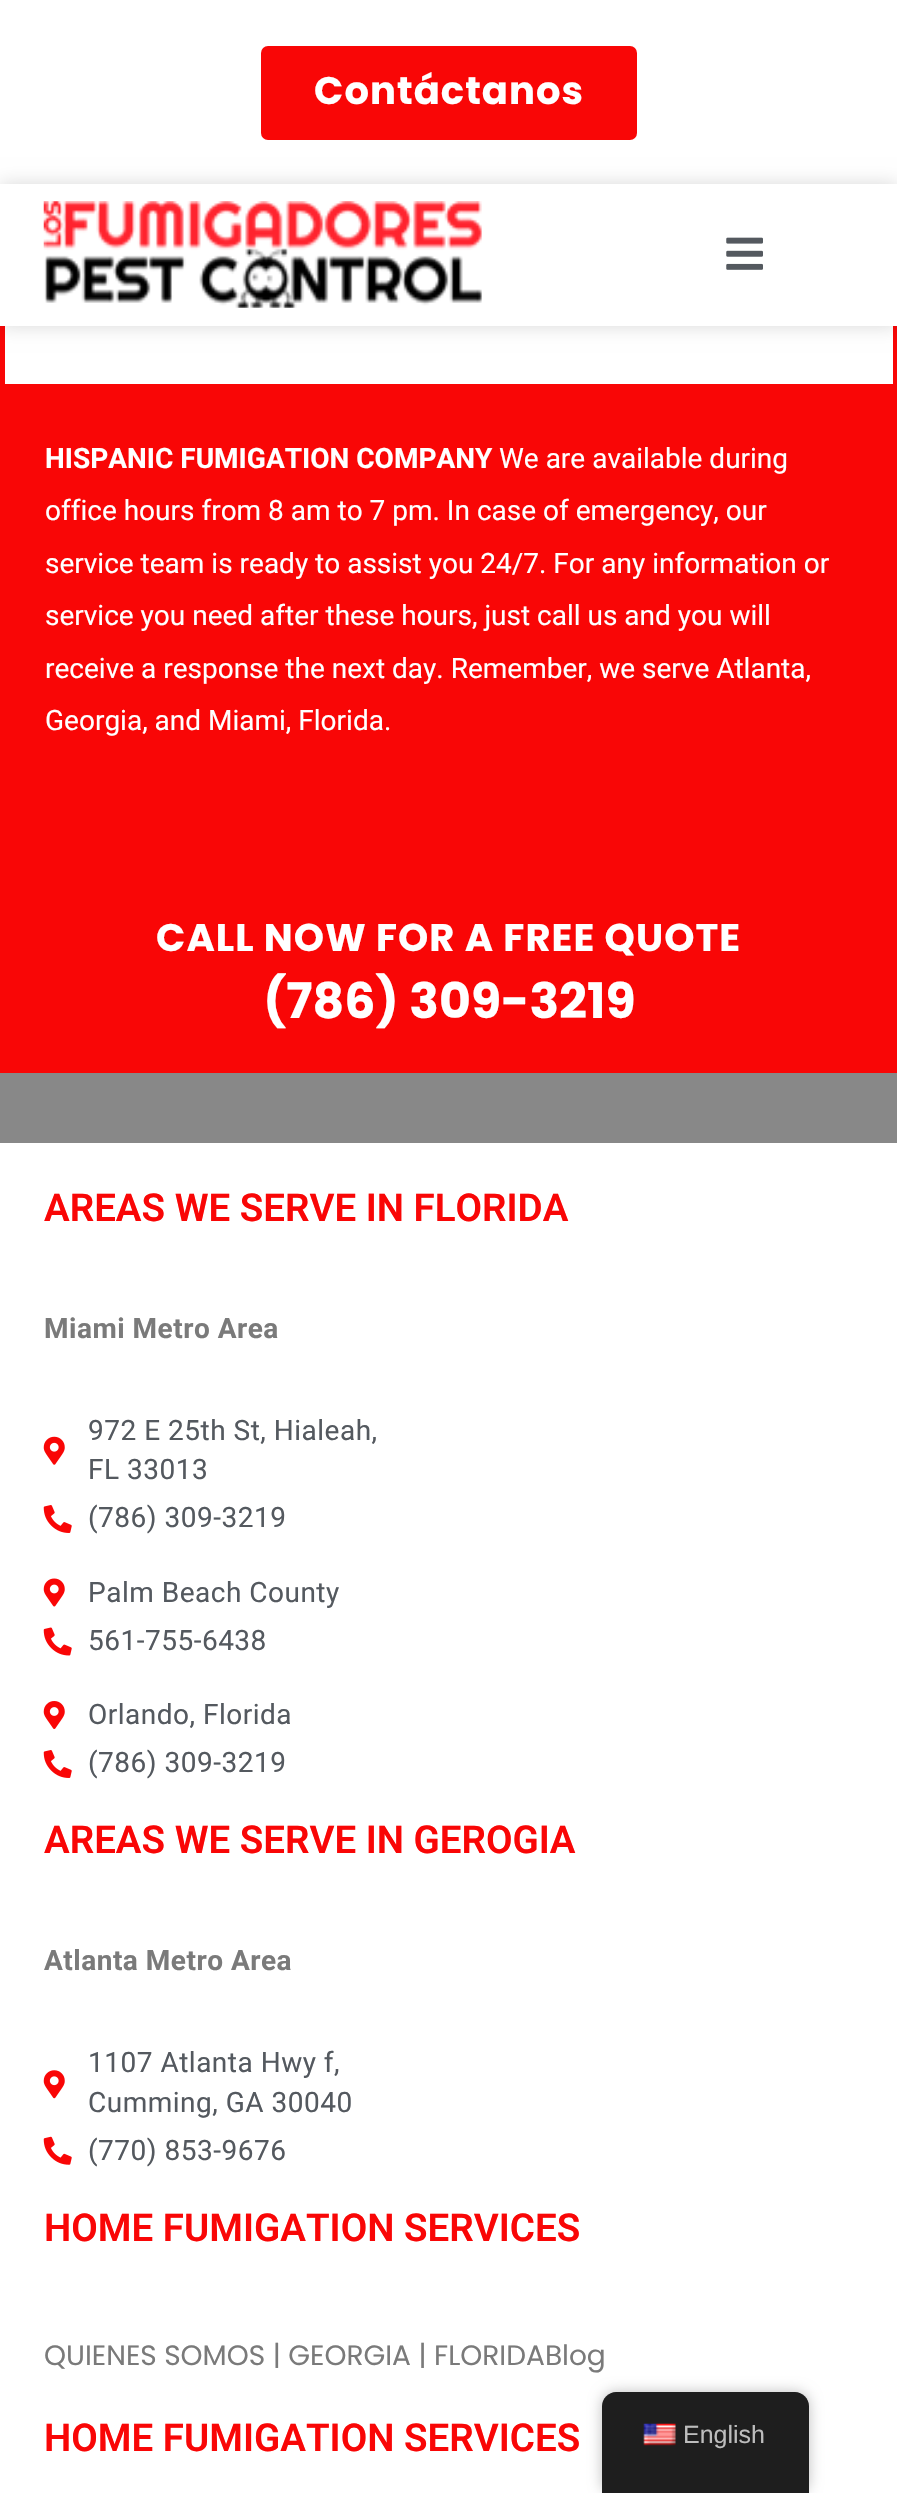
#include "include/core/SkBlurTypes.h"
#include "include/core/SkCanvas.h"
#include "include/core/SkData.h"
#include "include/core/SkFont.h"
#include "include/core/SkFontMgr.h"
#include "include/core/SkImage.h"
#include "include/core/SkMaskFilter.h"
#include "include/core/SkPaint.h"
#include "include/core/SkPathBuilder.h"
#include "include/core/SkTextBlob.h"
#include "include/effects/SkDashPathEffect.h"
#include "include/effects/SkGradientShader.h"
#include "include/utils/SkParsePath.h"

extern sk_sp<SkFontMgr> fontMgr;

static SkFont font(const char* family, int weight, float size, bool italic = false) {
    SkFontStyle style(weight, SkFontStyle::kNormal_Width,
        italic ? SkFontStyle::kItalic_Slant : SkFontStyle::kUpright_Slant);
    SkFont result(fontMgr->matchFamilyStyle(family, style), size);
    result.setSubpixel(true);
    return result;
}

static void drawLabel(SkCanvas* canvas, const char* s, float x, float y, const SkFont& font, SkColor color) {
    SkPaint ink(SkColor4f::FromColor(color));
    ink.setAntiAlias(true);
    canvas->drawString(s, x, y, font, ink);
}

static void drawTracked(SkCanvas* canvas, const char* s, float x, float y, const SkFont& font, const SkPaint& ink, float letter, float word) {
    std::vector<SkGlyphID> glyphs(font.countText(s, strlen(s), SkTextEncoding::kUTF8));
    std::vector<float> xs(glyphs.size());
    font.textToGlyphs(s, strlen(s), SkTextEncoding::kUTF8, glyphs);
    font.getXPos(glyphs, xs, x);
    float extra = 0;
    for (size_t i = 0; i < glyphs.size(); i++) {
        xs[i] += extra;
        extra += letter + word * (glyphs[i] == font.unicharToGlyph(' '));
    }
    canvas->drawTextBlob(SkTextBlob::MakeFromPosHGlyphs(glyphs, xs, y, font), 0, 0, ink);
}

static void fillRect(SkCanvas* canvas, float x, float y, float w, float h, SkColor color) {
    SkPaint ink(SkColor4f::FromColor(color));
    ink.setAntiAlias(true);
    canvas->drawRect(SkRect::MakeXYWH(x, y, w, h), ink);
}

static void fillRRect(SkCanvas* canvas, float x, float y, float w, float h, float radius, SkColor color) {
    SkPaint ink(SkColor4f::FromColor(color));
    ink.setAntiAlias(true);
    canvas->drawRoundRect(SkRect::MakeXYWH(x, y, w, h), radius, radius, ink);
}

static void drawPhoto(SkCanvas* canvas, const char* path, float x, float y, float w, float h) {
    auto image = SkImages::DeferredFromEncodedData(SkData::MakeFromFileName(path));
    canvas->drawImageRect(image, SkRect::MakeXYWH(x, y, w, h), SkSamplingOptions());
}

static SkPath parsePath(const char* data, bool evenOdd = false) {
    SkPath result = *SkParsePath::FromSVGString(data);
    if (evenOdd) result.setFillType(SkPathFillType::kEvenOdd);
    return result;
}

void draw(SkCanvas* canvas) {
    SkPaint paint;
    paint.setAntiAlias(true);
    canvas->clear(0xFFFFFFFF);
    paint.setStroke(true);
    paint.setStrokeWidth(5);
    paint.setColor(0xFFF90606);
    canvas->drawRect(SkRect::MakeXYWH(2.5f, -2.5f, 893, 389), paint);
    fillRect(canvas, 0, 0, 897, 184, 0xFFFFFFFF);
    fillRRect(canvas, 261, 46, 376, 94, 7, 0xFFF90606);
    SkFont font1 = font("Poppins", 700, 38.5f);
    paint.setStroke(false);
    paint.setColor(0xFFFFFFFF);
    drawTracked(canvas, "Contáctanos", 314, 104, font1, paint, 1.05f, 0);
    paint.setColor(0x26000000);
    paint.setMaskFilter(SkMaskFilter::MakeBlur(kNormal_SkBlurStyle, 9));
    canvas->drawRect(SkRect::MakeXYWH(0, 184, 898, 142), paint);
    paint.setMaskFilter(nullptr);
    fillRect(canvas, 0, 184, 897, 142, 0xFFFFFFFF);
    drawPhoto(canvas, "assets/img1.png", 43, 201, 439, 107);
    drawPhoto(canvas, "assets/img2.png", 726, 237, 37, 33);
    fillRect(canvas, 0, 389, 897, 684, 0xFFF90606);
    SkFont font2 = font("Roboto", 700, 28);
    drawLabel(canvas, "HISPANIC FUMIGATION COMPANY", 45, 468, font2, 0xFFFFFFFF);
    SkFont font3 = font("Roboto", 400, 28);
    drawLabel(canvas, "We are available during", 499, 468, font3, 0xFFFFFFFF);
    drawLabel(canvas, "office hours from 8 am to 7 pm. In case of emergency, our", 45, 520, font3, 0xFFFFFFFF);
    drawLabel(canvas, "service team is ready to assist you 24/7. For any information or", 45, 573, font3, 0xFFFFFFFF);
    drawLabel(canvas, "service you need after these hours, just call us and you will", 45, 625, font3, 0xFFFFFFFF);
    drawLabel(canvas, "receive a response the next day. Remember, we serve Atlanta,", 45, 678, font3, 0xFFFFFFFF);
    drawLabel(canvas, "Georgia, and Miami, Florida.", 45, 730, font3, 0xFFFFFFFF);
    paint.setColor(0xFFFFFFFF);
    drawTracked(canvas, "CALL NOW FOR A FREE QUOTE", 156, 951, font1, paint, 1.05f, 0);
    SkFont font4 = font("Poppins", 700, 49);
    drawLabel(canvas, "(786) 309-3219", 263, 1018, font4, 0xFFFFFFFF);
    fillRect(canvas, 0, 1073, 897, 70, 0xFF888888);
    SkFont font5 = font("Roboto", 600, 38.5f);
    drawLabel(canvas, "AREAS WE SERVE IN FLORIDA", 44, 1221, font5, 0xFFF90606);
    paint.setColor(0xFF7A7A7A);
    drawTracked(canvas, "Miami Metro Area", 44, 1338, font2, paint, 0.5f, 0);
    drawPhoto(canvas, "assets/img3.png", 43, 1436, 22, 29);
    paint.setColor(0xFF54595F);
    drawTracked(canvas, "972 E 25th St, Hialeah,", 88, 1440, font3, paint, 0.5f, 0);
    drawTracked(canvas, "FL 33013", 88, 1479, font3, paint, 0.5f, 0);
    drawPhoto(canvas, "assets/img4.png", 43, 1505, 29, 28);
    drawTracked(canvas, "(786) 309-3219", 88, 1527, font3, paint, 0.5f, 0);
    drawPhoto(canvas, "assets/img5.png", 43, 1578, 22, 29);
    drawTracked(canvas, "Palm Beach County", 88, 1602, font3, paint, 0.5f, 0);
    drawPhoto(canvas, "assets/img6.png", 43, 1627, 29, 29);
    drawTracked(canvas, "561-755-6438", 88, 1650, font3, paint, 0.5f, 0);
    drawPhoto(canvas, "assets/img7.png", 43, 1701, 22, 28);
    drawTracked(canvas, "Orlando, Florida", 88, 1724, font3, paint, 0.5f, 0);
    drawPhoto(canvas, "assets/img4.png", 43, 1750, 29, 28);
    drawTracked(canvas, "(786) 309-3219", 88, 1772, font3, paint, 0.5f, 0);
    drawLabel(canvas, "AREAS WE SERVE IN GEROGIA", 44, 1853, font5, 0xFFF90606);
    paint.setColor(0xFF7A7A7A);
    drawTracked(canvas, "Atlanta Metro Area", 44, 1970, font2, paint, 0.5f, 0);
    drawPhoto(canvas, "assets/img8.png", 43, 2070, 22, 29);
    paint.setColor(0xFF54595F);
    drawTracked(canvas, "1107 Atlanta Hwy f,", 88, 2072, font3, paint, 0.5f, 0);
    drawTracked(canvas, "Cumming, GA 30040", 88, 2112, font3, paint, 0.5f, 0);
    drawPhoto(canvas, "assets/img9.png", 43, 2136, 29, 29);
    drawTracked(canvas, "(770) 853-9676", 88, 2160, font3, paint, 0.5f, 0);
    drawLabel(canvas, "HOME FUMIGATION SERVICES", 44, 2241, font5, 0xFFF90606);
    SkFont font6 = font("Poppins", 400, 28);
    drawLabel(canvas, "QUIENES SOMOS | GEORGIA | FLORIDABlog", 44, 2365, font6, 0xFF7A7A7A);
    drawLabel(canvas, "HOME FUMIGATION SERVICES", 44, 2451, font5, 0xFFF90606);
    paint.setColor(0x40000000);
    paint.setMaskFilter(SkMaskFilter::MakeBlur(kNormal_SkBlurStyle, 7));
    canvas->drawRoundRect(SkRect::MakeXYWH(602, 2392, 207, 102), 14, 14, paint);
    paint.setMaskFilter(nullptr);
    paint.setColor(0xFF1E1E1E);
    canvas->drawPath(parsePath("M616 2392H795C802.5 2392 809 2398.5 809 2406V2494H602V2406C602 2398.5 608.5 2392 616 2392Z"), paint);
    drawPhoto(canvas, "assets/img10.png", 643, 2423, 33, 23);
    SkFont font7 = font("Liberation Sans", 400, 25);
    drawLabel(canvas, "English", 683, 2443, font7, 0xFFBDBDBD);
}
